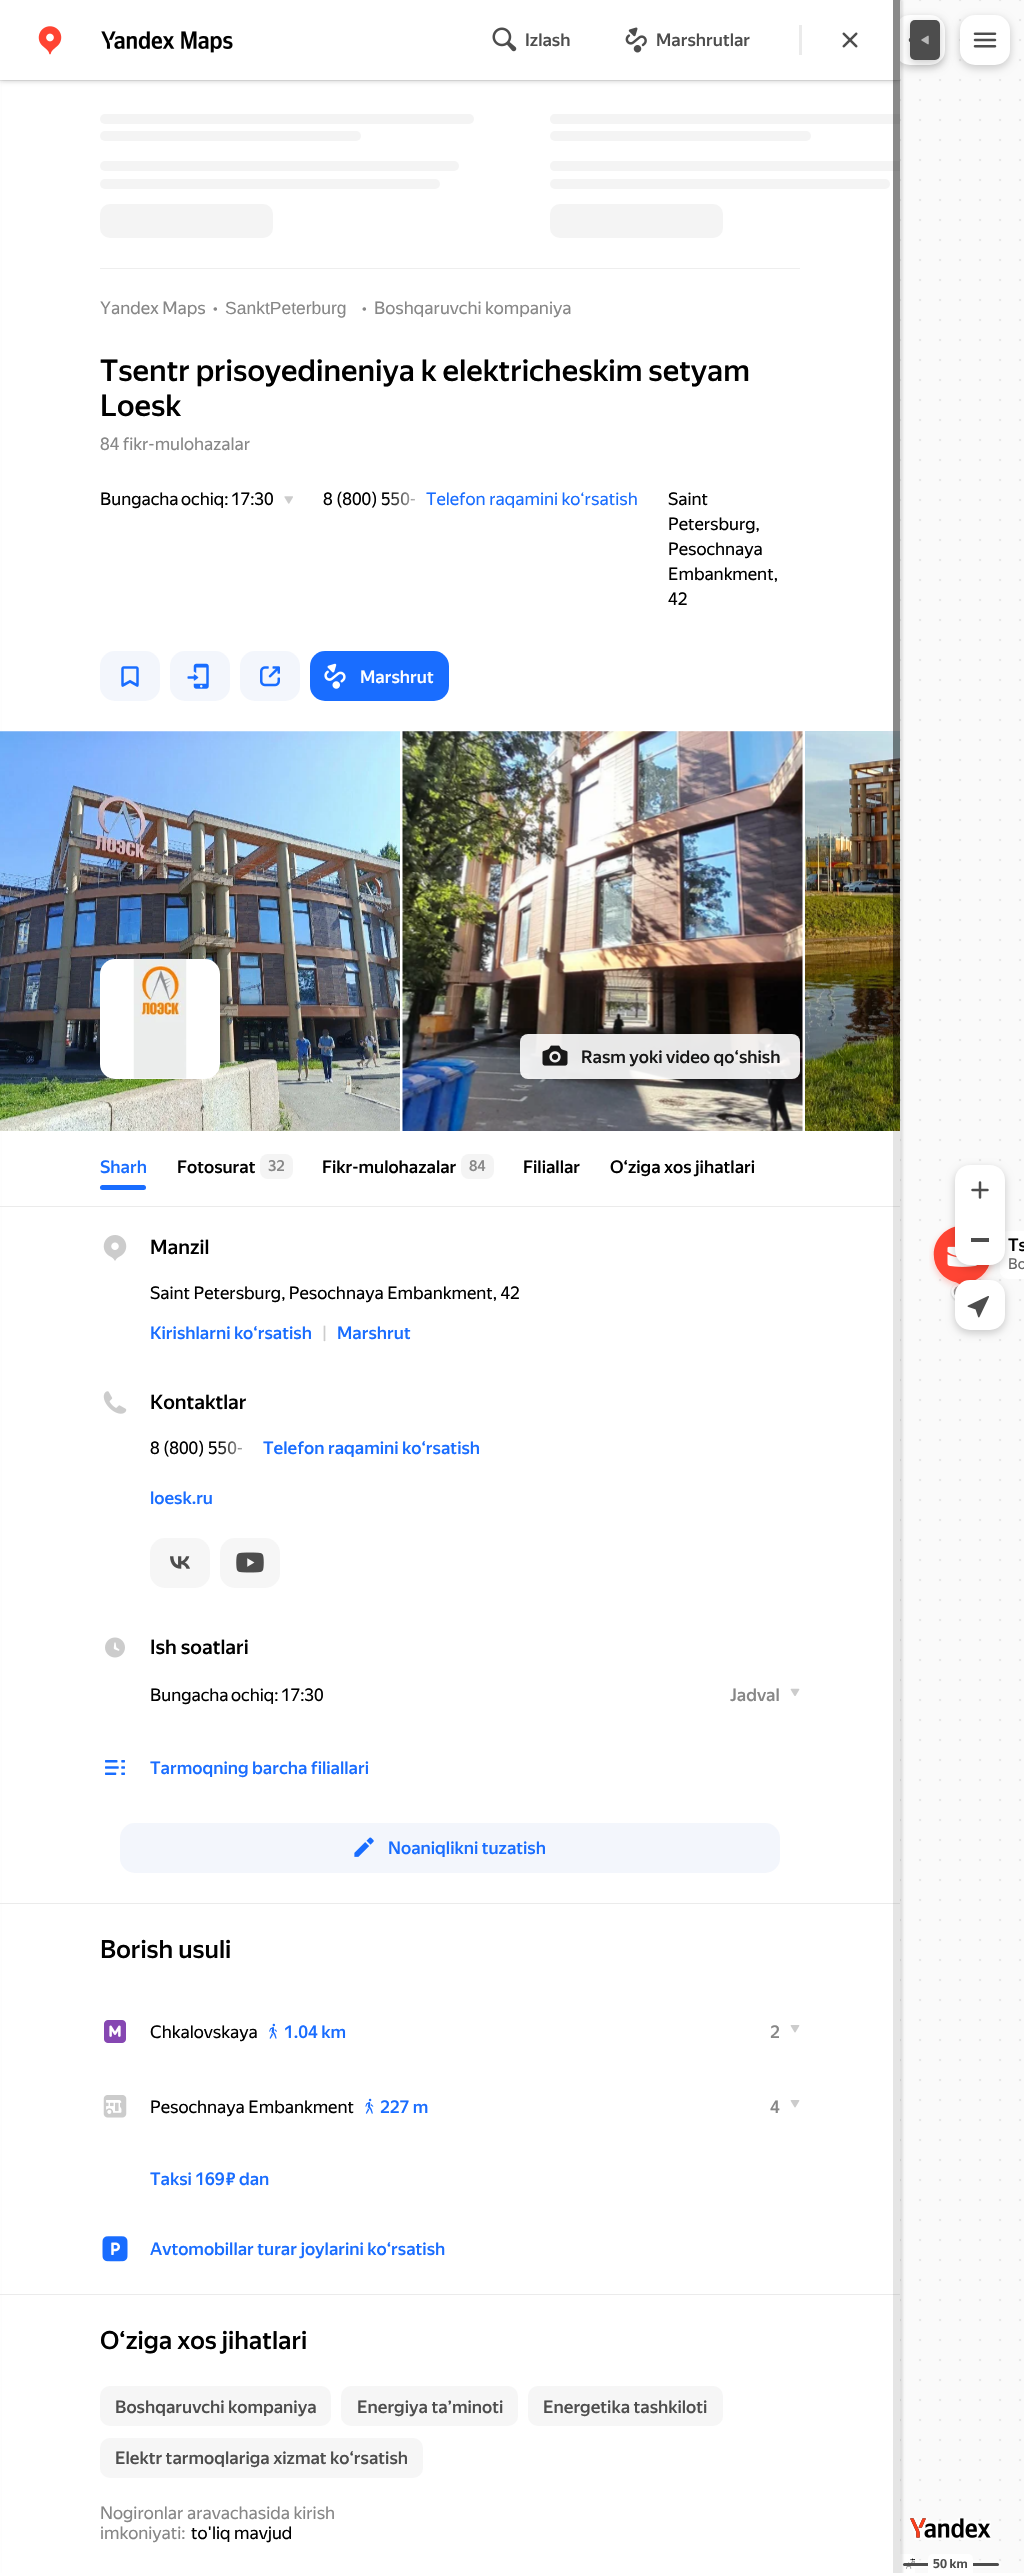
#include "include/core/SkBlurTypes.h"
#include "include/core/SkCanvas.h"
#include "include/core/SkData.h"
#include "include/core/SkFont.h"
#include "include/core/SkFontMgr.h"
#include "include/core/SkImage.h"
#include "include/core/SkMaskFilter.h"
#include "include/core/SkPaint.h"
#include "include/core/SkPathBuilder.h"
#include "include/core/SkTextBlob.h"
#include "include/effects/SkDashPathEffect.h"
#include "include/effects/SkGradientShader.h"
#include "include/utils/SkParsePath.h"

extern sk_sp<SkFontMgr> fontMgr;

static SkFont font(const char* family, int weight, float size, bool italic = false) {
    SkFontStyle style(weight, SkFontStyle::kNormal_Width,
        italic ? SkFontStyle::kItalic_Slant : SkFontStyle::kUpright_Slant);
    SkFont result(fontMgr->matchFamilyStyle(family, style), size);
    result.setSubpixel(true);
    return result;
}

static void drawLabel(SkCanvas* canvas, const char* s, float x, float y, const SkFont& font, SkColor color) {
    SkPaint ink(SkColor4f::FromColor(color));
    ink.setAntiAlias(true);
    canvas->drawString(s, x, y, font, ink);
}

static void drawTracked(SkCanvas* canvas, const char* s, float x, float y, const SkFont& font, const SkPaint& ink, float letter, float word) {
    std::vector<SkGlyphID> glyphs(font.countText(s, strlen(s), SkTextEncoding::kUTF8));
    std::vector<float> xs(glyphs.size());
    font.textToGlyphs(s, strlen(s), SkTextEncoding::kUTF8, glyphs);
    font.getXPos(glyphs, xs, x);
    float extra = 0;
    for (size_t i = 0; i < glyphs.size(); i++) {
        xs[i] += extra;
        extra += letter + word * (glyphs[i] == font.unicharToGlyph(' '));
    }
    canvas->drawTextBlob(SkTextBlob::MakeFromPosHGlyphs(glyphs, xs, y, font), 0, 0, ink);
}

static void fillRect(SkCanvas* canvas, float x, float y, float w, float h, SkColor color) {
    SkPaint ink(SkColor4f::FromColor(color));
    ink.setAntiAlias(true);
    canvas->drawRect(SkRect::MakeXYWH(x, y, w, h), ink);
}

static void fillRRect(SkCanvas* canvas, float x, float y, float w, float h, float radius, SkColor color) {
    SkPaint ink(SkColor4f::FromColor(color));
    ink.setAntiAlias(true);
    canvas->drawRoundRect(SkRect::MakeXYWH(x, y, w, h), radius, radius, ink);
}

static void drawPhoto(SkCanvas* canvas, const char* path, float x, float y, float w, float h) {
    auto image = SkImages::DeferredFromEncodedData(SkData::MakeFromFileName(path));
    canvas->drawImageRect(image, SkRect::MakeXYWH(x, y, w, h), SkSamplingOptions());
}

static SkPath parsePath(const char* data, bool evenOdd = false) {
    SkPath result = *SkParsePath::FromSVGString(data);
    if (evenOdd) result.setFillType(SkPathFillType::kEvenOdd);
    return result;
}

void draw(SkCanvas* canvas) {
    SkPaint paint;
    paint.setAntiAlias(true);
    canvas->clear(0xFFFFFFFF);
    drawPhoto(canvas, "assets/img1.png", 900, 0, 124, 2573);
    paint.setColor(0x33000000);
    paint.setMaskFilter(SkMaskFilter::MakeBlur(kNormal_SkBlurStyle, 4));
    canvas->drawRoundRect(SkRect::MakeXYWH(895, 18, 50, 50), 15, 15, paint);
    paint.setMaskFilter(nullptr);
    fillRRect(canvas, 895, 15, 50, 50, 15, 0xFFFFFFFF);
    paint.setColor(0xFFFFFFFF);
    canvas->drawPath(parsePath("M900 2554H910C913 2554 915 2556 915 2559V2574H895V2559C895 2556 897 2554 900 2554Z"), paint);
    drawPhoto(canvas, "assets/img37.png", 906, 2558, 9, 11);
    fillRRect(canvas, 900, 2560, 101, 8, 4, 0x99FFFFFF);
    fillRRect(canvas, 903, 2563, 96, 3, 1.5f, 0xFF4D4D4D);
    paint.setColor(0x1A000000);
    paint.setMaskFilter(SkMaskFilter::MakeBlur(kNormal_SkBlurStyle, 1));
    canvas->drawRect(SkRect::MakeXYWH(3, 0, 900, 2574), paint);
    paint.setMaskFilter(nullptr);
    fillRect(canvas, 2, 81, 898, 2492, 0xFFFFFFFF);
    fillRect(canvas, 0, 80, 900, 1, 0xFFEBEBEB);
    canvas->save();
    canvas->clipRect(SkRect::MakeXYWH(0, 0, 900, 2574));
    paint.setColor(0x33000000);
    paint.setMaskFilter(SkMaskFilter::MakeBlur(kNormal_SkBlurStyle, 2.5f));
    canvas->drawRect(SkRect::MakeXYWH(0, 76, 900, 5), paint);
    paint.setMaskFilter(nullptr);
    canvas->restore();
    drawPhoto(canvas, "assets/img32.png", 908, 38, 2, 4);
    paint.setMaskFilter(SkMaskFilter::MakeBlur(kNormal_SkBlurStyle, 4));
    canvas->drawRoundRect(SkRect::MakeXYWH(910, 23, 30, 40), 5, 5, paint);
    paint.setMaskFilter(nullptr);
    fillRect(canvas, 0, 0, 900, 80, 0xFFFFFFFF);
    drawPhoto(canvas, "assets/img2.png", 38, 26, 24, 29);
    drawPhoto(canvas, "assets/img3.png", 101, 31, 132, 22);
    drawPhoto(canvas, "assets/img4.png", 492, 27, 25, 25);
    SkFont font1 = font("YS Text", 500, 17.5f);
    drawLabel(canvas, "Izlash", 525, 46, font1, 0xFF4D4D4D);
    drawPhoto(canvas, "assets/img5.png", 625, 27, 22, 26);
    drawLabel(canvas, "Marshrutlar", 656, 46, font1, 0xFF4D4D4D);
    fillRect(canvas, 799, 25, 3, 30, 0xFFEBEBEB);
    drawPhoto(canvas, "assets/img6.png", 842, 32, 16, 16);
    fillRect(canvas, 100, 268, 700, 1, 0xFFEEEEEE);
    {
        const SkColor colors[] = {0xFFF4F4F4, 0xFFEBEBEB, 0xFFF4F4F4};
        const float stops[] = {0.6f, 0.78f, 0.86f};
        const SkPoint ends[] = {{-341, -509}, {914, 746}};
        paint.setShader(SkGradientShader::MakeLinear(ends, colors, stops, 3, SkTileMode::kClamp));
        paint.setAlpha(255);
    }
    canvas->drawRoundRect(SkRect::MakeXYWH(100, 114, 374, 10), 5, 5, paint);
    {
        const SkColor colors[] = {0xFFF4F4F4, 0xFFEBEBEB, 0xFFF4F4F4};
        const float stops[] = {0.6f, 0.78f, 0.86f};
        const SkPoint ends[] = {{-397, -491}, {858, 764}};
        paint.setShader(SkGradientShader::MakeLinear(ends, colors, stops, 3, SkTileMode::kClamp));
        paint.setAlpha(255);
    }
    canvas->drawRoundRect(SkRect::MakeXYWH(100, 131, 261, 10), 5, 5, paint);
    {
        const SkColor colors[] = {0xFFF4F4F4, 0xFFEBEBEB, 0xFFF4F4F4};
        const float stops[] = {0.6f, 0.78f, 0.86f};
        const SkPoint ends[] = {{-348, -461}, {907, 794}};
        paint.setShader(SkGradientShader::MakeLinear(ends, colors, stops, 3, SkTileMode::kClamp));
        paint.setAlpha(255);
    }
    canvas->drawRoundRect(SkRect::MakeXYWH(100, 161, 359, 10), 5, 5, paint);
    {
        const SkColor colors[] = {0xFFF4F4F4, 0xFFEBEBEB, 0xFFF4F4F4};
        const float stops[] = {0.6f, 0.78f, 0.86f};
        const SkPoint ends[] = {{-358, -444}, {898, 811}};
        paint.setShader(SkGradientShader::MakeLinear(ends, colors, stops, 3, SkTileMode::kClamp));
        paint.setAlpha(255);
    }
    canvas->drawRoundRect(SkRect::MakeXYWH(100, 179, 340, 10), 5, 5, paint);
    {
        const SkColor colors[] = {0xFFF4F4F4, 0xFFEBEBEB, 0xFFF4F4F4};
        const float stops[] = {0.6f, 0.78f, 0.86f};
        const SkPoint ends[] = {{-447, -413}, {820, 854}};
        paint.setShader(SkGradientShader::MakeLinear(ends, colors, stops, 3, SkTileMode::kClamp));
        paint.setAlpha(255);
    }
    canvas->drawRoundRect(SkRect::MakeXYWH(100, 204, 173, 34), 10, 10, paint);
    {
        const SkColor colors[] = {0xFFF4F4F4, 0xFFEBEBEB, 0xFFF4F4F4};
        const float stops[] = {0.6f, 0.78f, 0.86f};
        const SkPoint ends[] = {{109, -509}, {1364, 746}};
        paint.setShader(SkGradientShader::MakeLinear(ends, colors, stops, 3, SkTileMode::kClamp));
        paint.setAlpha(255);
    }
    canvas->drawPath(parsePath("M555 114H900V124H555C552 124 550 122 550 119C550 116 552 114 555 114Z"), paint);
    {
        const SkColor colors[] = {0xFFF4F4F4, 0xFFEBEBEB, 0xFFF4F4F4};
        const float stops[] = {0.6f, 0.78f, 0.86f};
        const SkPoint ends[] = {{53, -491}, {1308, 764}};
        paint.setShader(SkGradientShader::MakeLinear(ends, colors, stops, 3, SkTileMode::kClamp));
        paint.setAlpha(255);
    }
    canvas->drawRoundRect(SkRect::MakeXYWH(550, 131, 261, 10), 5, 5, paint);
    {
        const SkColor colors[] = {0xFFF4F4F4, 0xFFEBEBEB, 0xFFF4F4F4};
        const float stops[] = {0.6f, 0.78f, 0.86f};
        const SkPoint ends[] = {{102, -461}, {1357, 794}};
        paint.setShader(SkGradientShader::MakeLinear(ends, colors, stops, 3, SkTileMode::kClamp));
        paint.setAlpha(255);
    }
    canvas->drawPath(parsePath("M555 161H900V171H555C552 171 550 169 550 166C550 163 552 161 555 161Z"), paint);
    {
        const SkColor colors[] = {0xFFF4F4F4, 0xFFEBEBEB, 0xFFF4F4F4};
        const float stops[] = {0.6f, 0.78f, 0.86f};
        const SkPoint ends[] = {{92, -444}, {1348, 811}};
        paint.setShader(SkGradientShader::MakeLinear(ends, colors, stops, 3, SkTileMode::kClamp));
        paint.setAlpha(255);
    }
    canvas->drawRoundRect(SkRect::MakeXYWH(550, 179, 340, 10), 5, 5, paint);
    {
        const SkColor colors[] = {0xFFF4F4F4, 0xFFEBEBEB, 0xFFF4F4F4};
        const float stops[] = {0.6f, 0.78f, 0.86f};
        const SkPoint ends[] = {{2.8f, -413}, {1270, 854}};
        paint.setShader(SkGradientShader::MakeLinear(ends, colors, stops, 3, SkTileMode::kClamp));
        paint.setAlpha(255);
    }
    canvas->drawRoundRect(SkRect::MakeXYWH(550, 204, 173, 34), 10, 10, paint);
    SkFont font2 = font("YS Text", 400, 17.5f);
    drawLabel(canvas, "Yandex Maps", 100, 314, font2, 0xFF878787);
    drawLabel(canvas, "•", 213, 314, font2, 0xFF878787);
    SkFont font3 = font("Liberation Sans", 400, 17.5f);
    drawLabel(canvas, "Sankt‑Peterburg", 225, 314, font3, 0xFF878787);
    drawLabel(canvas, "•", 362, 314, font2, 0xFF878787);
    drawLabel(canvas, "Boshqaruvchi kompaniya", 374, 314, font2, 0xFF878787);
    SkFont font4 = font("YS Text", 500, 30);
    drawLabel(canvas, "Tsentr prisoyedineniya k elektricheskim setyam", 100, 381, font4, 0xFF000000);
    drawLabel(canvas, "Loesk", 100, 416, font4, 0xFF000000);
    drawLabel(canvas, "84 fikr-mulohazalar", 100, 450, font2, 0xFF878787);
    paint.setShader(nullptr);
    paint.setColor(0xFF000000);
    drawTracked(canvas, "Bungacha ochiq: 17:30", 100, 505, font2, paint, 0, -1);
    drawPhoto(canvas, "assets/img7.png", 284, 496, 9, 8);
    drawLabel(canvas, "8 (800) 550-", 323, 505, font2, 0xFF000000);
    {
        const SkColor colors[] = {0x00FFFFFF, 0xFFFFFFFF};
        const float stops[] = {0, 1};
        const SkPoint ends[] = {{386, 499}, {426, 499}};
        paint.setShader(SkGradientShader::MakeLinear(ends, colors, stops, 2, SkTileMode::kClamp));
        paint.setAlpha(255);
    }
    canvas->drawRect(SkRect::MakeXYWH(387, 492, 28, 14), paint);
    drawLabel(canvas, "Telefon raqamini ko‘rsatish", 426, 505, font2, 0xFF196DFF);
    drawLabel(canvas, "Saint", 668, 505, font2, 0xFF000000);
    drawLabel(canvas, "Petersburg,", 668, 530, font2, 0xFF000000);
    drawLabel(canvas, "Pesochnaya", 668, 555, font2, 0xFF000000);
    drawLabel(canvas, "Embankment,", 668, 580, font2, 0xFF000000);
    drawLabel(canvas, "42", 668, 605, font2, 0xFF000000);
    fillRRect(canvas, 100, 651, 60, 50, 15, 0xFFF3F6FC);
    drawPhoto(canvas, "assets/img8.png", 121, 666, 18, 21);
    fillRRect(canvas, 170, 651, 60, 50, 15, 0xFFF3F6FC);
    drawPhoto(canvas, "assets/img9.png", 187, 663, 22, 26);
    fillRRect(canvas, 240, 651, 60, 50, 15, 0xFFF3F6FC);
    drawPhoto(canvas, "assets/img10.png", 260, 666, 20, 21);
    fillRRect(canvas, 310, 651, 139, 50, 15, 0xFF196DFF);
    drawPhoto(canvas, "assets/img11.png", 324, 663, 22, 26);
    drawLabel(canvas, "Marshrut", 360, 683, font1, 0xFFFFFFFF);
    drawPhoto(canvas, "assets/img12.png", 0, 731, 400, 400);
    drawPhoto(canvas, "assets/img13.png", 402, 731, 401, 400);
    drawPhoto(canvas, "assets/img14.png", 805, 731, 95, 400);
    fillRRect(canvas, 100, 959, 120, 120, 15, 0xFFFFFFFF);
    drawPhoto(canvas, "assets/img15.png", 133, 958, 54, 121);
    fillRRect(canvas, 520, 1034, 280, 45, 8, 0xE6FFFFFF);
    drawPhoto(canvas, "assets/img16.png", 542, 1045, 26, 21);
    drawLabel(canvas, "Rasm yoki video qoʻshish", 581, 1063, font1, 0xFF171717);
    drawLabel(canvas, "Sharh", 100, 1173, font1, 0xFF196DFF);
    drawLabel(canvas, "Fotosurat", 177, 1173, font1, 0xFF000000);
    fillRRect(canvas, 260, 1154, 33, 25, 8, 0xFFF4F4F4);
    SkFont font5 = font("YS Text", 500, 15);
    drawLabel(canvas, "32", 268, 1171, font5, 0xFF878787);
    drawLabel(canvas, "Fikr-mulohazalar", 322, 1173, font1, 0xFF000000);
    fillRRect(canvas, 461, 1154, 33, 25, 8, 0xFFF4F4F4);
    drawLabel(canvas, "84", 469, 1171, font5, 0xFF878787);
    drawLabel(canvas, "Filiallar", 523, 1173, font1, 0xFF000000);
    drawLabel(canvas, "O‘ziga xos jihatlari", 610, 1173, font1, 0xFF000000);
    fillRRect(canvas, 100, 1185, 46, 5, 2.5f, 0xFF196DFF);
    fillRect(canvas, 0, 1206, 900, 1, 0xFFEBEBEB);
    drawPhoto(canvas, "assets/img17.png", 103, 1235, 24, 26);
    SkFont font6 = font("YS Text", 500, 20);
    drawLabel(canvas, "Manzil", 150, 1254, font6, 0xFF000000);
    drawLabel(canvas, "Saint Petersburg, Pesochnaya Embankment, 42", 150, 1299, font2, 0xFF000000);
    drawLabel(canvas, "Kirishlarni ko‘rsatish", 150, 1339, font1, 0xFF196DFF);
    drawLabel(canvas, "|", 322, 1339, font2, 0xFFCCCCCC);
    drawLabel(canvas, "Marshrut", 337, 1339, font1, 0xFF196DFF);
    drawPhoto(canvas, "assets/img18.png", 103, 1391, 24, 23);
    drawLabel(canvas, "Kontaktlar", 150, 1409, font6, 0xFF000000);
    drawLabel(canvas, "8 (800) 550-", 150, 1454, font2, 0xFF000000);
    {
        const SkColor colors[] = {0x00FFFFFF, 0xFFFFFFFF};
        const float stops[] = {0, 1};
        const SkPoint ends[] = {{216, 1448}, {256, 1448}};
        paint.setShader(SkGradientShader::MakeLinear(ends, colors, stops, 2, SkTileMode::kClamp));
        paint.setAlpha(255);
    }
    canvas->drawRect(SkRect::MakeXYWH(218, 1441, 24, 14), paint);
    drawLabel(canvas, "Telefon raqamini ko‘rsatish", 263, 1454, font1, 0xFF196DFF);
    drawLabel(canvas, "loesk.ru", 150, 1504, font1, 0xFF196DFF);
    fillRRect(canvas, 150, 1538, 60, 50, 15, 0xFFF6F6F6);
    drawPhoto(canvas, "assets/img19.png", 170, 1556, 20, 13);
    fillRRect(canvas, 220, 1538, 60, 50, 15, 0xFFF6F6F6);
    drawPhoto(canvas, "assets/img20.png", 236, 1552, 28, 21);
    drawPhoto(canvas, "assets/img21.png", 105, 1637, 20, 21);
    drawLabel(canvas, "Ish soatlari", 150, 1654, font6, 0xFF000000);
    paint.setShader(nullptr);
    paint.setColor(0xFF000000);
    drawTracked(canvas, "Bungacha ochiq: 17:30", 150, 1701, font2, paint, 0, -1);
    drawLabel(canvas, "Jadval", 730, 1701, font1, 0xFF878787);
    drawPhoto(canvas, "assets/img22.png", 790, 1688, 10, 8);
    drawPhoto(canvas, "assets/img23.png", 105, 1760, 20, 15);
    drawLabel(canvas, "Tarmoqning barcha filiallari", 150, 1774, font1, 0xFF196DFF);
    fillRRect(canvas, 120, 1823, 660, 50, 15, 0xFFF3F6FC);
    drawPhoto(canvas, "assets/img24.png", 354, 1837, 20, 20);
    drawLabel(canvas, "Noaniqlikni tuzatish", 388, 1854, font1, 0xFF196DFF);
    fillRect(canvas, 0, 1903, 900, 1, 0xFFEBEBEB);
    SkFont font7 = font("YS Text", 500, 25);
    drawLabel(canvas, "Borish usuli", 100, 1958, font7, 0xFF000000);
    drawPhoto(canvas, "assets/img25.png", 104, 2020, 22, 23);
    drawLabel(canvas, "Chkalovskaya", 150, 2038, font2, 0xFF000000);
    drawPhoto(canvas, "assets/img26.png", 269, 2023, 8, 16);
    drawLabel(canvas, "1.04 km", 284, 2038, font1, 0xFF196DFF);
    drawLabel(canvas, "2", 770, 2038, font1, 0xFF878787);
    drawPhoto(canvas, "assets/img27.png", 790, 2025, 10, 8);
    drawPhoto(canvas, "assets/img28.png", 103, 2095, 24, 23);
    drawLabel(canvas, "Pesochnaya Embankment", 150, 2113, font2, 0xFF000000);
    drawPhoto(canvas, "assets/img29.png", 365, 2098, 9, 16);
    drawLabel(canvas, "227 m", 380, 2113, font1, 0xFF196DFF);
    drawLabel(canvas, "4", 770, 2113, font1, 0xFF878787);
    drawPhoto(canvas, "assets/img27.png", 790, 2100, 10, 8);
    drawLabel(canvas, "Taksi 169 ₽ dan", 150, 2185, font1, 0xFF196DFF);
    drawPhoto(canvas, "assets/img30.png", 102, 2236, 26, 26);
    drawLabel(canvas, "Avtomobillar turar joylarini ko‘rsatish", 150, 2255, font1, 0xFF196DFF);
    fillRect(canvas, 0, 2294, 900, 1, 0xFFEBEBEB);
    drawLabel(canvas, "O‘ziga xos jihatlari", 100, 2349, font7, 0xFF000000);
    fillRRect(canvas, 100, 2386, 231, 40, 10, 0xFFF6F6F6);
    drawLabel(canvas, "Boshqaruvchi kompaniya", 115, 2413, font1, 0xFF4D4D4D);
    fillRRect(canvas, 341, 2386, 177, 40, 10, 0xFFF6F6F6);
    drawLabel(canvas, "Energiya ta’minoti", 357, 2413, font1, 0xFF4D4D4D);
    fillRRect(canvas, 528, 2386, 195, 40, 10, 0xFFF6F6F6);
    drawLabel(canvas, "Energetika tashkiloti", 543, 2413, font1, 0xFF4D4D4D);
    fillRRect(canvas, 100, 2438, 323, 40, 10, 0xFFF6F6F6);
    drawLabel(canvas, "Elektr tarmoqlariga xizmat ko‘rsatish", 115, 2464, font1, 0xFF4D4D4D);
    drawLabel(canvas, "Nogironlar aravachasida kirish", 100, 2519, font2, 0xFF878787);
    drawLabel(canvas, "imkoniyati:", 100, 2539, font2, 0xFF878787);
    drawLabel(canvas, "to'liq mavjud", 191, 2539, font2, 0xFF000000);
    fillRect(canvas, 893, 0, 7, 2573, 0x1A000000);
    fillRect(canvas, 893, 0, 7, 1104, 0x66000000);
    fillRRect(canvas, 910, 20, 30, 40, 5, 0xFF4D4D4D);
    drawPhoto(canvas, "assets/img31.png", 921, 35, 8, 10);
    paint.setColor(0x33000000);
    paint.setMaskFilter(SkMaskFilter::MakeBlur(kNormal_SkBlurStyle, 4));
    canvas->drawRoundRect(SkRect::MakeXYWH(960, 18, 50, 50), 15, 15, paint);
    paint.setMaskFilter(nullptr);
    fillRRect(canvas, 960, 15, 50, 50, 15, 0xFFFFFFFF);
    drawPhoto(canvas, "assets/img33.png", 973, 32, 24, 16);
    drawPhoto(canvas, "assets/img40.png", 950, 1283, 10, 18);
    drawPhoto(canvas, "assets/img38.png", 929, 1225, 66, 67);
    drawPhoto(canvas, "assets/img39.png", 947, 1246, 30, 21);
    paint.setColor(0xE6FFFFFF);
    canvas->drawPath(parsePath("M1008 1231H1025V1279H1008C1003.5 1279 1000 1275.5 1000 1271V1239C1000 1234.5 1003.5 1231 1008 1231Z"), paint);
    paint.setColor(0x33000000);
    paint.setMaskFilter(SkMaskFilter::MakeBlur(kNormal_SkBlurStyle, 4));
    canvas->drawRoundRect(SkRect::MakeXYWH(955, 1168, 50, 100), 15, 15, paint);
    paint.setMaskFilter(nullptr);
    paint.setColor(0xFFFFFFFF);
    canvas->drawPath(parsePath("M970 1165H990C998.5 1165 1005 1171.5 1005 1180V1215H955V1180C955 1171.5 961.5 1165 970 1165Z"), paint);
    drawPhoto(canvas, "assets/img34.png", 971, 1181, 18, 18);
    canvas->drawPath(parsePath("M955 1215H1005V1250C1005 1258.5 998.5 1265 990 1265H970C961.5 1265 955 1258.5 955 1250Z"), paint);
    fillRect(canvas, 971, 1238, 18, 4, 0xFF4D4D4D);
    paint.setColor(0x33000000);
    paint.setMaskFilter(SkMaskFilter::MakeBlur(kNormal_SkBlurStyle, 4));
    canvas->drawRoundRect(SkRect::MakeXYWH(955, 1283, 50, 50), 15, 15, paint);
    paint.setMaskFilter(nullptr);
    fillRRect(canvas, 955, 1280, 50, 50, 15, 0xFFFFFFFF);
    drawPhoto(canvas, "assets/img35.png", 967, 1296, 22, 22);
    drawPhoto(canvas, "assets/img36.png", 910, 2518, 81, 22);
    paint.setColor(0xFFFFFFFF);
    canvas->drawPath(parsePath("M933 2554H968C971 2554 973 2556 973 2559V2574H928V2559C928 2556 930 2554 933 2554Z"), paint);
    SkFont font8 = font("YS Text", 700, 12.5f);
    drawLabel(canvas, "50 km", 933, 2568, font8, 0xFF4D4D4D);
    drawLabel(canvas, "Ts", 1008, 1251, font1, 0xFF000000);
    SkFont font9 = font("YS Text", 400, 15);
    drawLabel(canvas, "Bo", 1008, 1269, font9, 0xFF666666);
}
